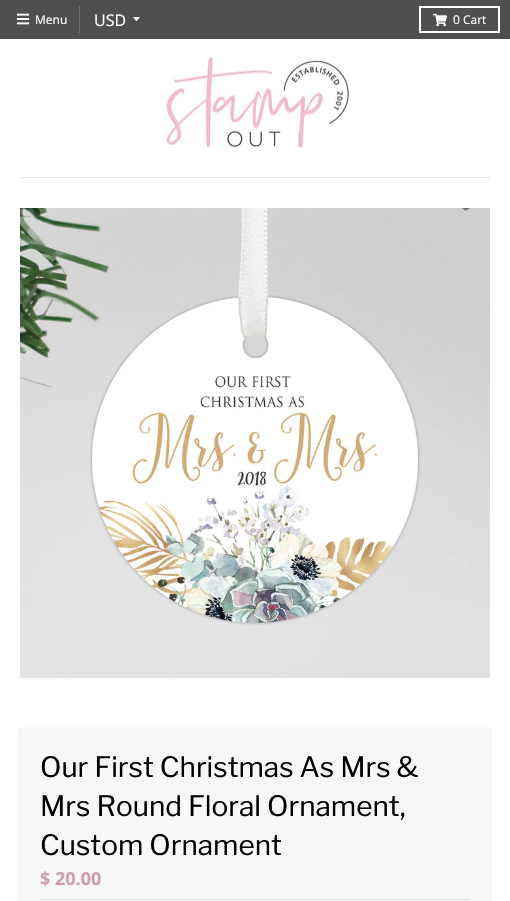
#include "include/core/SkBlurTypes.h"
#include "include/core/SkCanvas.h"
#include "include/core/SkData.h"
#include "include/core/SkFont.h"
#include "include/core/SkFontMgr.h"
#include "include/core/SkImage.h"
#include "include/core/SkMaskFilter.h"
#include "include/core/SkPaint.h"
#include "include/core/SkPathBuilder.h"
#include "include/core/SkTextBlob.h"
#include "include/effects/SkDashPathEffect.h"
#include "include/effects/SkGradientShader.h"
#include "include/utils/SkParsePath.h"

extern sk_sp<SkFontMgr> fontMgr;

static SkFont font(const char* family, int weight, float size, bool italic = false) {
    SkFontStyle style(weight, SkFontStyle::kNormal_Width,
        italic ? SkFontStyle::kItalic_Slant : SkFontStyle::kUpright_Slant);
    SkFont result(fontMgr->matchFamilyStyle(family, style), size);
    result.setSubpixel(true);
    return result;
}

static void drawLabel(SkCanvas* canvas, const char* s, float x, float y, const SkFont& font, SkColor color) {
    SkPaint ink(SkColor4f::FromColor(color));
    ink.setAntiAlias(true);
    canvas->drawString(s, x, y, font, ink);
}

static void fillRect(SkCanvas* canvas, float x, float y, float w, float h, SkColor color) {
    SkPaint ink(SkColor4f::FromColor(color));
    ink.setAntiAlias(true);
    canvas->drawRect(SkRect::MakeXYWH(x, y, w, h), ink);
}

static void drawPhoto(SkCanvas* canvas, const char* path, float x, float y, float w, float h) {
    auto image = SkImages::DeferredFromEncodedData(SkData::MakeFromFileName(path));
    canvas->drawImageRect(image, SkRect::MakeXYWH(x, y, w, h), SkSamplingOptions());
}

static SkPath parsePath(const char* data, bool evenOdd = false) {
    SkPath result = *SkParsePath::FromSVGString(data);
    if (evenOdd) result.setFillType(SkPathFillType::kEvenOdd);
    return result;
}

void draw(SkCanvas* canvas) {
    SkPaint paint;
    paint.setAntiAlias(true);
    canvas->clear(0xFFFFFFFF);
    fillRect(canvas, 0, 0, 510, 39, 0xFF4F4F4F);
    fillRect(canvas, 79, 6, 1, 27, 0xFF727272);
    drawPhoto(canvas, "assets/img1.png", 16, 13, 14, 12);
    SkFont font1 = font("Open Sans", 400, 12);
    drawLabel(canvas, "Menu", 35, 24, font1, 0xFFFFFFFF);
    paint.setColor(0xFFFFFFFF);
    canvas->drawPath(parsePath("M133 17C137.5 22.5 135.5 22.5 140 17Z"), paint);
    SkFont font2 = font("Open Sans", 400, 16);
    drawLabel(canvas, "USD", 94, 26, font2, 0xFFFFFFFF);
    paint.setStroke(true);
    paint.setStrokeWidth(2);
    canvas->drawRect(SkRect::MakeXYWH(420, 7, 79, 25), paint);
    drawPhoto(canvas, "assets/img2.png", 433, 13, 14, 14);
    drawLabel(canvas, "0 Cart", 453, 24, font1, 0xFFFFFFFF);
    drawPhoto(canvas, "assets/img3.png", 163, 56, 188, 92);
    fillRect(canvas, 20, 177, 470, 1, 0xFFE5E5E5);
    drawPhoto(canvas, "assets/img4.png", 20, 208, 470, 470);
    paint.setStroke(false);
    paint.setColor(0x33000000);
    paint.setMaskFilter(SkMaskFilter::MakeBlur(kNormal_SkBlurStyle, 1));
    canvas->drawRect(SkRect::MakeXYWH(20, 729, 470, 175), paint);
    paint.setMaskFilter(nullptr);
    fillRect(canvas, 20, 728, 470, 173, 0xFFF7F7F7);
    SkFont font3 = font("Libre Franklin", 400, 28);
    drawLabel(canvas, "Our First Christmas As Mrs &", 40, 777, font3, 0xFF000000);
    drawLabel(canvas, "Mrs Round Floral Ornament,", 40, 816, font3, 0xFF000000);
    drawLabel(canvas, "Custom Ornament", 40, 855, font3, 0xFF000000);
    fillRect(canvas, 40, 899, 430, 1, 0xFFDEDEDE);
    SkFont font4 = font("Open Sans", 700, 18);
    drawLabel(canvas, "$ 20.00", 40, 885, font4, 0xFFD19CAF);
}
